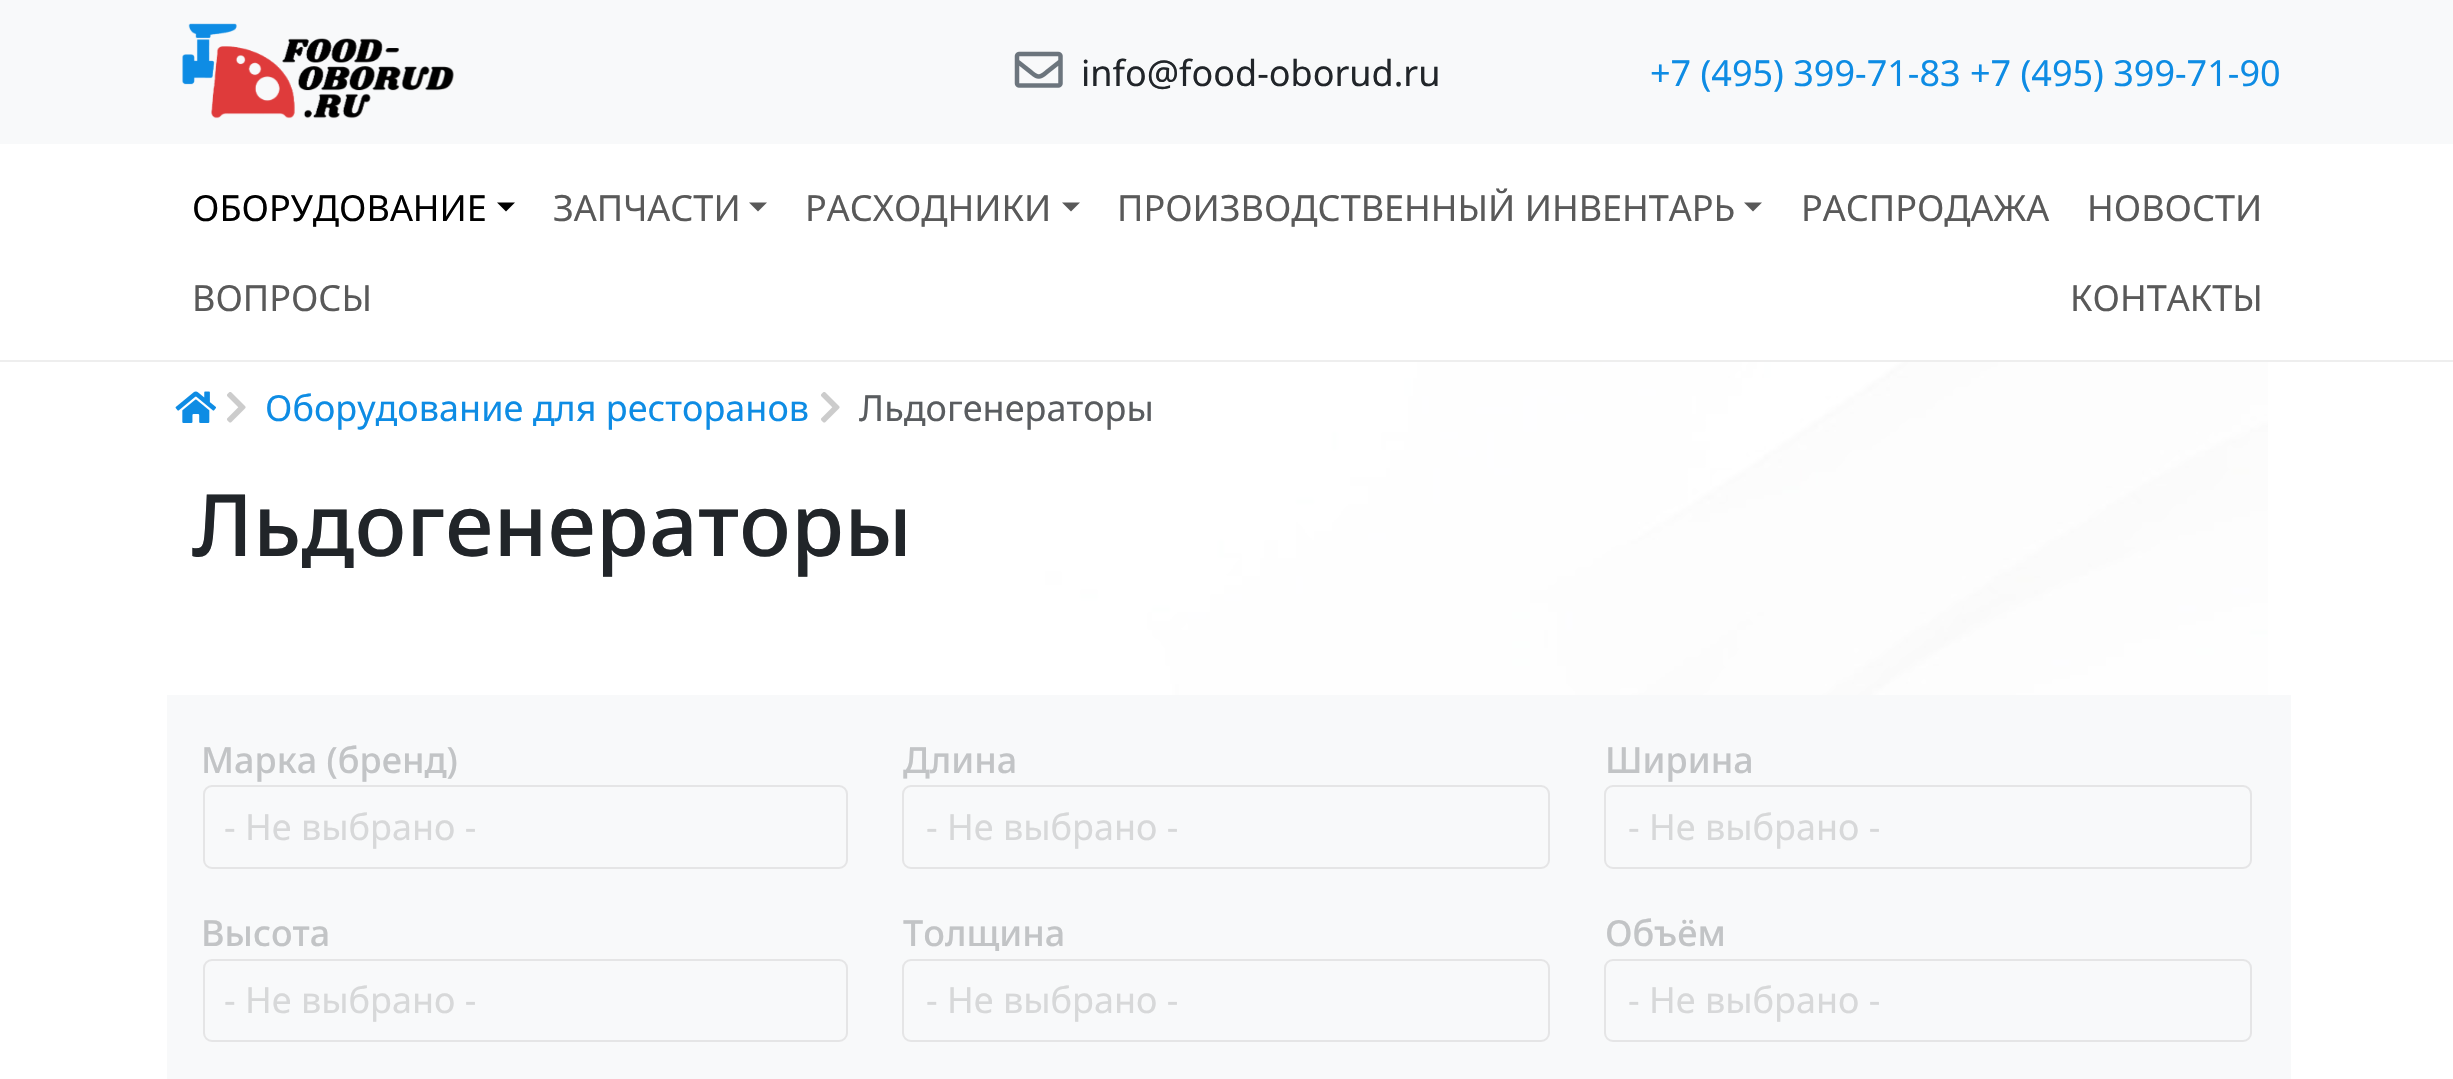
#include "include/core/SkBlurTypes.h"
#include "include/core/SkCanvas.h"
#include "include/core/SkData.h"
#include "include/core/SkFont.h"
#include "include/core/SkFontMgr.h"
#include "include/core/SkImage.h"
#include "include/core/SkMaskFilter.h"
#include "include/core/SkPaint.h"
#include "include/core/SkPathBuilder.h"
#include "include/core/SkTextBlob.h"
#include "include/effects/SkDashPathEffect.h"
#include "include/effects/SkGradientShader.h"
#include "include/utils/SkParsePath.h"

extern sk_sp<SkFontMgr> fontMgr;

static SkFont font(const char* family, int weight, float size, bool italic = false) {
    SkFontStyle style(weight, SkFontStyle::kNormal_Width,
        italic ? SkFontStyle::kItalic_Slant : SkFontStyle::kUpright_Slant);
    SkFont result(fontMgr->matchFamilyStyle(family, style), size);
    result.setSubpixel(true);
    return result;
}

static void drawLabel(SkCanvas* canvas, const char* s, float x, float y, const SkFont& font, SkColor color) {
    SkPaint ink(SkColor4f::FromColor(color));
    ink.setAntiAlias(true);
    canvas->drawString(s, x, y, font, ink);
}

static void fillRect(SkCanvas* canvas, float x, float y, float w, float h, SkColor color) {
    SkPaint ink(SkColor4f::FromColor(color));
    ink.setAntiAlias(true);
    canvas->drawRect(SkRect::MakeXYWH(x, y, w, h), ink);
}

static void drawPhoto(SkCanvas* canvas, const char* path, float x, float y, float w, float h) {
    auto image = SkImages::DeferredFromEncodedData(SkData::MakeFromFileName(path));
    canvas->drawImageRect(image, SkRect::MakeXYWH(x, y, w, h), SkSamplingOptions());
}

static SkPath parsePath(const char* data, bool evenOdd = false) {
    SkPath result = *SkParsePath::FromSVGString(data);
    if (evenOdd) result.setFillType(SkPathFillType::kEvenOdd);
    return result;
}

void draw(SkCanvas* canvas) {
    SkPaint paint;
    paint.setAntiAlias(true);
    canvas->clear(0xFFFFFFFF);
    drawPhoto(canvas, "assets/img1.png", 1045, 362, 1223, 333);
    fillRect(canvas, 0, 360, 2453, 2, 0xFFEEEEEE);
    fillRect(canvas, 0, 0, 2453, 144, 0xFFF8F9FA);
    drawPhoto(canvas, "assets/img2.png", 182, 23, 272, 96);
    drawPhoto(canvas, "assets/img3.png", 1014, 51, 49, 37);
    SkFont font1 = font("Noto Sans", 400, 36);
    drawLabel(canvas, "info@food-oborud.ru", 1081, 86, font1, 0xFF212529);
    drawLabel(canvas, "+7 (495) 399-71-83 +7 (495) 399-71-90", 1650, 86, font1, 0xFF0E8CE4);
    drawLabel(canvas, "ОБОРУДОВАНИЕ", 192, 221, font1, 0xFF000000);
    paint.setColor(0xFF000000);
    canvas->drawPath(parsePath("M497 202.5H515L506 211.5Z"), paint);
    drawLabel(canvas, "ЗАПЧАСТИ", 553, 221, font1, 0xFF595959);
    paint.setColor(0xFF595959);
    canvas->drawPath(parsePath("M749 202.5H767L758 211.5Z"), paint);
    drawLabel(canvas, "РАСХОДНИКИ", 805, 221, font1, 0xFF595959);
    canvas->drawPath(parsePath("M1062 202.5H1080L1071 211.5Z"), paint);
    drawLabel(canvas, "ПРОИЗВОДСТВЕННЫЙ ИНВЕНТАРЬ", 1117, 221, font1, 0xFF595959);
    canvas->drawPath(parsePath("M1744 202.5H1762L1753 211.5Z"), paint);
    drawLabel(canvas, "РАСПРОДАЖА", 1801, 221, font1, 0xFF595959);
    drawLabel(canvas, "НОВОСТИ", 2087, 221, font1, 0xFF595959);
    drawLabel(canvas, "ВОПРОСЫ", 192, 311, font1, 0xFF595959);
    drawLabel(canvas, "КОНТАКТЫ", 2070, 311, font1, 0xFF595959);
    drawPhoto(canvas, "assets/img4.png", 175, 391, 41, 32);
    drawPhoto(canvas, "assets/img5.png", 227, 392, 19, 31);
    drawLabel(canvas, "Оборудование для ресторанов", 265, 421, font1, 0xFF0E8CE4);
    drawPhoto(canvas, "assets/img5.png", 821, 392, 19, 31);
    drawLabel(canvas, "Льдогенераторы", 859, 421, font1, 0xFF595C5F);
    SkFont font2 = font("Noto Sans", 500, 86.25f);
    drawLabel(canvas, "Льдогенераторы", 192, 556, font2, 0xFF212529);
    fillRect(canvas, 167, 695, 2124, 384, 0xFFF8F9FA);
    SkFont font3 = font("Noto Sans", 500, 36);
    drawLabel(canvas, "Марка (бренд)", 201, 773, font3, 0xFFC2C4C6);
    paint.setStroke(true);
    paint.setStrokeWidth(2);
    paint.setColor(0xFFE5E5E6);
    canvas->drawRoundRect(SkRect::MakeXYWH(204, 786, 643, 82), 8, 8, paint);
    drawLabel(canvas, "- Не выбрано -", 224, 840, font1, 0xFFD7D8D9);
    drawLabel(canvas, "Длина", 903, 773, font3, 0xFFC2C4C6);
    canvas->drawRoundRect(SkRect::MakeXYWH(903, 786, 646, 82), 8, 8, paint);
    drawLabel(canvas, "- Не выбрано -", 926, 840, font1, 0xFFD7D8D9);
    drawLabel(canvas, "Ширина", 1605, 773, font3, 0xFFC2C4C6);
    canvas->drawRoundRect(SkRect::MakeXYWH(1605, 786, 646, 82), 8, 8, paint);
    drawLabel(canvas, "- Не выбрано -", 1628, 840, font1, 0xFFD7D8D9);
    drawLabel(canvas, "Высота", 201, 946, font3, 0xFFC2C4C6);
    canvas->drawRoundRect(SkRect::MakeXYWH(204, 960, 643, 81), 8, 8, paint);
    drawLabel(canvas, "- Не выбрано -", 224, 1013, font1, 0xFFD7D8D9);
    drawLabel(canvas, "Толщина", 903, 946, font3, 0xFFC2C4C6);
    canvas->drawRoundRect(SkRect::MakeXYWH(903, 960, 646, 81), 8, 8, paint);
    drawLabel(canvas, "- Не выбрано -", 926, 1013, font1, 0xFFD7D8D9);
    drawLabel(canvas, "Объём", 1605, 946, font3, 0xFFC2C4C6);
    canvas->drawRoundRect(SkRect::MakeXYWH(1605, 960, 646, 81), 8, 8, paint);
    drawLabel(canvas, "- Не выбрано -", 1628, 1013, font1, 0xFFD7D8D9);
}
